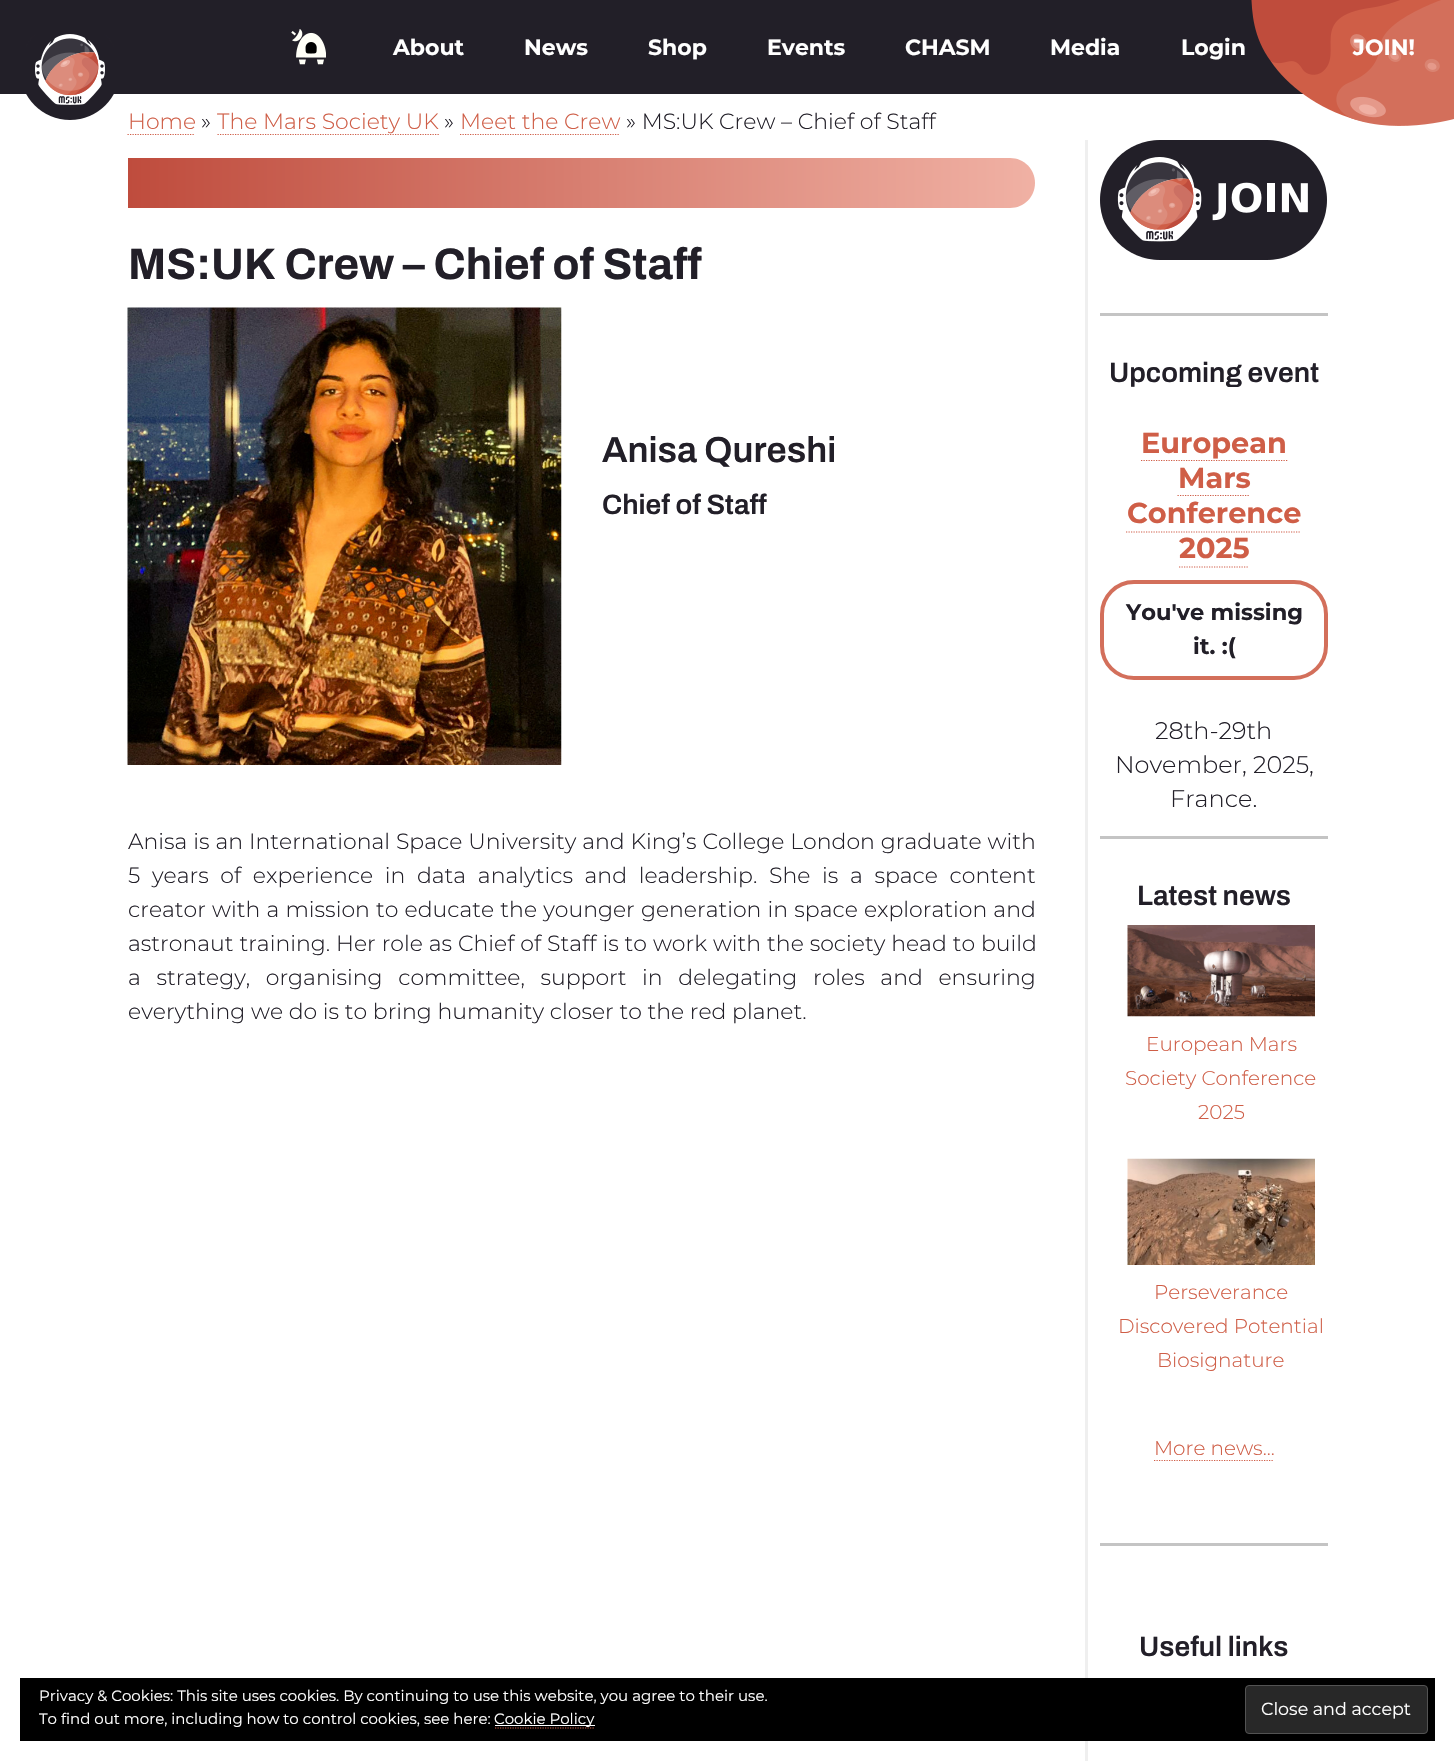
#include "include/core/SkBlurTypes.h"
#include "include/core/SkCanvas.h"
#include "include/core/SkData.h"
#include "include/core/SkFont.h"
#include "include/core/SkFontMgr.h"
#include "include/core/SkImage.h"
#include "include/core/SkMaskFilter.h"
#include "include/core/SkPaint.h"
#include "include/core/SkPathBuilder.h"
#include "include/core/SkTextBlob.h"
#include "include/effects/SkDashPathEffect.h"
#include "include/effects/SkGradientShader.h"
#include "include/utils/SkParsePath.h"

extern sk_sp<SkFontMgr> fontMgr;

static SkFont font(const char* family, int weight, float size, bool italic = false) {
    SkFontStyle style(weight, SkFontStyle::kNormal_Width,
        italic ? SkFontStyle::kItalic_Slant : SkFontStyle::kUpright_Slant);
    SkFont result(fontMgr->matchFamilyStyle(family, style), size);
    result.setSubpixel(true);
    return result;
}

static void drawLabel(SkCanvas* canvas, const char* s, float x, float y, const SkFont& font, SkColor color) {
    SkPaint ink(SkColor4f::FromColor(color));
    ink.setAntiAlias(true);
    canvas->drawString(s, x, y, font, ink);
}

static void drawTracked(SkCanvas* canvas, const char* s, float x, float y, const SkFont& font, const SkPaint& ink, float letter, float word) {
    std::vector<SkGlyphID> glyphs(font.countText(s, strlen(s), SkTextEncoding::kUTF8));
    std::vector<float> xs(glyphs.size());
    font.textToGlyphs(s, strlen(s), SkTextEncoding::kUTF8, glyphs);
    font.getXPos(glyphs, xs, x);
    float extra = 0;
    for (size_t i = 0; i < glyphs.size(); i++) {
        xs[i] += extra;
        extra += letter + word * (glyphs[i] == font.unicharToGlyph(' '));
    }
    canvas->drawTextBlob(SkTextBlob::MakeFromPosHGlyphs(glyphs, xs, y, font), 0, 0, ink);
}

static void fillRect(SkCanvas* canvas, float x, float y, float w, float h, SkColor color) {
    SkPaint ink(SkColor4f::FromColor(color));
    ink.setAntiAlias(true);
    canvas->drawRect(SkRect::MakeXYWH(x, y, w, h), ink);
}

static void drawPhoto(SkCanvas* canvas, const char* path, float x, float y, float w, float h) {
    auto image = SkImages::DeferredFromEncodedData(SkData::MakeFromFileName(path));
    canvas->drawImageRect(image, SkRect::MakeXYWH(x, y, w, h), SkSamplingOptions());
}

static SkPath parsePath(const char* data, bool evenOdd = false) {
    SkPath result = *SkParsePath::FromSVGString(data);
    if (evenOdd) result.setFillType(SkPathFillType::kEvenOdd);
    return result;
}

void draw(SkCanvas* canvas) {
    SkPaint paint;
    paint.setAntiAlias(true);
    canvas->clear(0xFFFFFFFF);
    fillRect(canvas, 0, 0, 1304, 94, 0xFF221F28);
    drawPhoto(canvas, "assets/img1.png", 26, 34, 88, 86);
    drawPhoto(canvas, "assets/img2.png", 1251, 0, 203, 126);
    drawPhoto(canvas, "assets/img3.png", 291, 29, 35, 36);
    SkFont font1 = font("Montserrat", 700, 22);
    drawLabel(canvas, "About", 393, 55, font1, 0xFFFFFFFF);
    drawLabel(canvas, "News", 524, 55, font1, 0xFFFFFFFF);
    drawLabel(canvas, "Shop", 648, 55, font1, 0xFFFFFFFF);
    drawLabel(canvas, "Events", 767, 55, font1, 0xFFFFFFFF);
    drawLabel(canvas, "CHASM", 905, 55, font1, 0xFFFFFFFF);
    drawLabel(canvas, "Media", 1050, 55, font1, 0xFFFFFFFF);
    drawLabel(canvas, "Login", 1181, 55, font1, 0xFFFFFFFF);
    drawLabel(canvas, "JOIN!", 1353, 55, font1, 0xFFFFFFFF);
    SkFont font2 = font("Montserrat", 300, 22);
    drawLabel(canvas, "Home", 128, 129, font2, 0xFFCF5E47);
    paint.setStroke(true);
    paint.setStrokeWidth(1.2f);
    paint.setColor(0xFFCF5E47);
    paint.setPathEffect(SkDashPathEffect::Make({{1.25f, 1.25f}}, 0));
    canvas->drawPath(parsePath("M127.5 134.5H195"), paint);
    paint.setPathEffect(nullptr);
    drawLabel(canvas, "»", 201, 129, font2, 0xFF221F28);
    paint.setPathEffect(SkDashPathEffect::Make({{1.25f, 1.25f}}, 0));
    canvas->drawPath(parsePath("M217.5 134.5H439"), paint);
    paint.setPathEffect(nullptr);
    drawLabel(canvas, "The Mars Society UK", 217, 129, font2, 0xFFCF5E47);
    drawLabel(canvas, "»", 444, 129, font2, 0xFF221F28);
    drawLabel(canvas, "Meet the Crew", 460, 129, font2, 0xFFCF5E47);
    paint.setPathEffect(SkDashPathEffect::Make({{1.25f, 1.25f}}, 0));
    canvas->drawPath(parsePath("M460 134.5H620"), paint);
    paint.setPathEffect(nullptr);
    drawLabel(canvas, "» MS:UK Crew – Chief of Staff", 626, 129, font2, 0xFF221F28);
    paint.setStroke(false);
    {
        const SkColor colors[] = {0xFFBF4C3D, 0xFFF0B1A4};
        const float stops[] = {0, 1};
        const SkPoint ends[] = {{128, 183}, {1035, 182}};
        paint.setShader(SkGradientShader::MakeLinear(ends, colors, stops, 2, SkTileMode::kClamp));
        paint.setAlpha(255);
    }
    canvas->drawPath(parsePath("M128 158H1010C1024 158 1035 169 1035 183C1035 197 1024 208 1010 208H128Z"), paint);
    SkFont font3 = font("Archivo", 700, 44);
    drawLabel(canvas, "MS:UK Crew – Chief of Staff", 128, 279, font3, 0xFF221F28);
    drawPhoto(canvas, "assets/img4.png", 127, 307, 435, 458);
    SkFont font4 = font("Archivo", 600, 36);
    drawLabel(canvas, "Anisa Qureshi", 602, 462, font4, 0xFF221F28);
    SkFont font5 = font("Archivo", 600, 28);
    drawLabel(canvas, "Chief of Staff", 602, 514, font5, 0xFF221F28);
    paint.setShader(nullptr);
    paint.setColor(0xFF221F28);
    drawTracked(canvas, "Anisa is an International Space University and King’s College London graduate with", 128, 849, font2, paint, 0, 0.25f);
    drawTracked(canvas, "5 years of experience in data analytics and leadership. She is a space content", 128, 883, font2, paint, 0, 6);
    drawTracked(canvas, "creator with a mission to educate the younger generation in space exploration and", 128, 917, font2, paint, 0, 0.5f);
    drawTracked(canvas, "astronaut training. Her role as Chief of Staff is to work with the society head to build", 128, 951, font2, paint, 0, 0.25f);
    drawTracked(canvas, "a strategy, organising committee, support in delegating roles and ensuring", 128, 985, font2, paint, 0, 10);
    drawLabel(canvas, "everything we do is to bring humanity closer to the red planet.", 128, 1019, font2, 0xFF221F28);
    fillRect(canvas, 1085, 140, 3, 1621, 0xFFEFEFEF);
    drawPhoto(canvas, "assets/img5.png", 1100, 140, 227, 120);
    fillRect(canvas, 1100, 313, 228, 3, 0xFFC4C4C4);
    drawLabel(canvas, "Upcoming event", 1109, 382, font5, 0xFF221F28);
    SkFont font6 = font("Montserrat", 700, 28.75f);
    drawLabel(canvas, "European", 1141, 453, font6, 0xFFCF5E47);
    paint.setStroke(true);
    paint.setColor(0xFFCF5E47);
    paint.setPathEffect(SkDashPathEffect::Make({{1.25f, 1.25f}}, 0));
    canvas->drawPath(parsePath("M1141 460.5H1287.5"), paint);
    paint.setPathEffect(nullptr);
    drawLabel(canvas, "Mars", 1178, 488, font6, 0xFFCF5E47);
    drawLabel(canvas, "Conference", 1127, 523, font6, 0xFFCF5E47);
    paint.setPathEffect(SkDashPathEffect::Make({{1.25f, 1.25f}}, 0));
    canvas->drawPath(parsePath("M1177.5 495.5H1250"), paint);
    paint.setPathEffect(nullptr);
    drawLabel(canvas, "2025", 1179, 558, font6, 0xFFCF5E47);
    paint.setPathEffect(SkDashPathEffect::Make({{1.25f, 1.25f}}, 0));
    canvas->drawPath(parsePath("M1126 532H1301"), paint);
    paint.setPathEffect(nullptr);
    paint.setPathEffect(SkDashPathEffect::Make({{1.25f, 1.25f}}, 0));
    canvas->drawPath(parsePath("M1179 567H1249"), paint);
    paint.setPathEffect(nullptr);
    paint.setStrokeWidth(4);
    paint.setColor(0xFFD36F5B);
    canvas->drawRoundRect(SkRect::MakeXYWH(1102, 582, 224, 96), 32, 32, paint);
    SkFont font7 = font("Montserrat", 700, 22.5f);
    drawLabel(canvas, "You've missing", 1126, 620, font7, 0xFF221F28);
    drawLabel(canvas, "it. :(", 1193, 654, font7, 0xFF221F28);
    SkFont font8 = font("Montserrat", 300, 24);
    drawLabel(canvas, "28th-29th", 1155, 739, font8, 0xFF221F28);
    drawLabel(canvas, "November, 2025,", 1115, 773, font8, 0xFF221F28);
    drawLabel(canvas, "France.", 1170, 807, font8, 0xFF221F28);
    fillRect(canvas, 1100, 836, 228, 3, 0xFFC4C4C4);
    drawLabel(canvas, "Latest news", 1137, 905, font5, 0xFF221F28);
    drawPhoto(canvas, "assets/img6.png", 1127, 925, 188, 92);
    SkFont font9 = font("Montserrat", 300, 20);
    drawLabel(canvas, "European Mars", 1146, 1051, font9, 0xFFCF5E47);
    drawLabel(canvas, "Society Conference", 1125, 1085, font9, 0xFFCF5E47);
    drawLabel(canvas, "2025", 1198, 1119, font9, 0xFFCF5E47);
    drawPhoto(canvas, "assets/img7.png", 1127, 1158, 188, 107);
    drawLabel(canvas, "Perseverance", 1154, 1299, font9, 0xFFCF5E47);
    drawLabel(canvas, "Discovered Potential", 1118, 1333, font9, 0xFFCF5E47);
    drawLabel(canvas, "Biosignature", 1157, 1367, font9, 0xFFCF5E47);
    drawLabel(canvas, "More news...", 1154, 1455, font9, 0xFFCF5E47);
    paint.setStrokeWidth(1.2f);
    paint.setColor(0xFFCF5E47);
    paint.setPathEffect(SkDashPathEffect::Make({{1.25f, 1.25f}}, 0));
    canvas->drawPath(parsePath("M1154 1460.5H1274"), paint);
    paint.setPathEffect(nullptr);
    fillRect(canvas, 1100, 1543, 228, 3, 0xFFC4C4C4);
    drawLabel(canvas, "Useful links", 1139, 1656, font5, 0xFF221F28);
    fillRect(canvas, 20, 1678, 1415, 63, 0xFF000000);
    SkFont font10 = font("Montserrat", 400, 15);
    drawLabel(canvas, "Privacy & Cookies: This site uses cookies. By continuing to use this website, you agree to their use.", 39, 1701, font10, 0xFFFFFFFF);
    drawLabel(canvas, "To find out more, including how to control cookies, see here:", 39, 1724, font10, 0xFFFFFFFF);
    fillRect(canvas, 495, 1725, 100, 1, 0xFFFFFFFF);
    drawLabel(canvas, "Cookie Policy", 494, 1724, font10, 0xFFFFFFFF);
    paint.setPathEffect(SkDashPathEffect::Make({{1.25f, 1.25f}}, 0));
    canvas->drawPath(parsePath("M495 1728H595"), paint);
    paint.setPathEffect(nullptr);
    paint.setStroke(false);
    paint.setColor(0xFF282828);
    canvas->drawRoundRect(SkRect::MakeXYWH(1245.5f, 1685.5f, 182, 48), 3.5f, 3.5f, paint);
    paint.setStroke(true);
    paint.setStrokeWidth(1);
    paint.setColor(0xFF535353);
    canvas->drawRoundRect(SkRect::MakeXYWH(1245.5f, 1685.5f, 182, 48), 3.5f, 3.5f, paint);
    SkFont font11 = font("Montserrat", 400, 17.5f);
    drawLabel(canvas, "Close and accept", 1261, 1715, font11, 0xFFFFFFFF);
}
